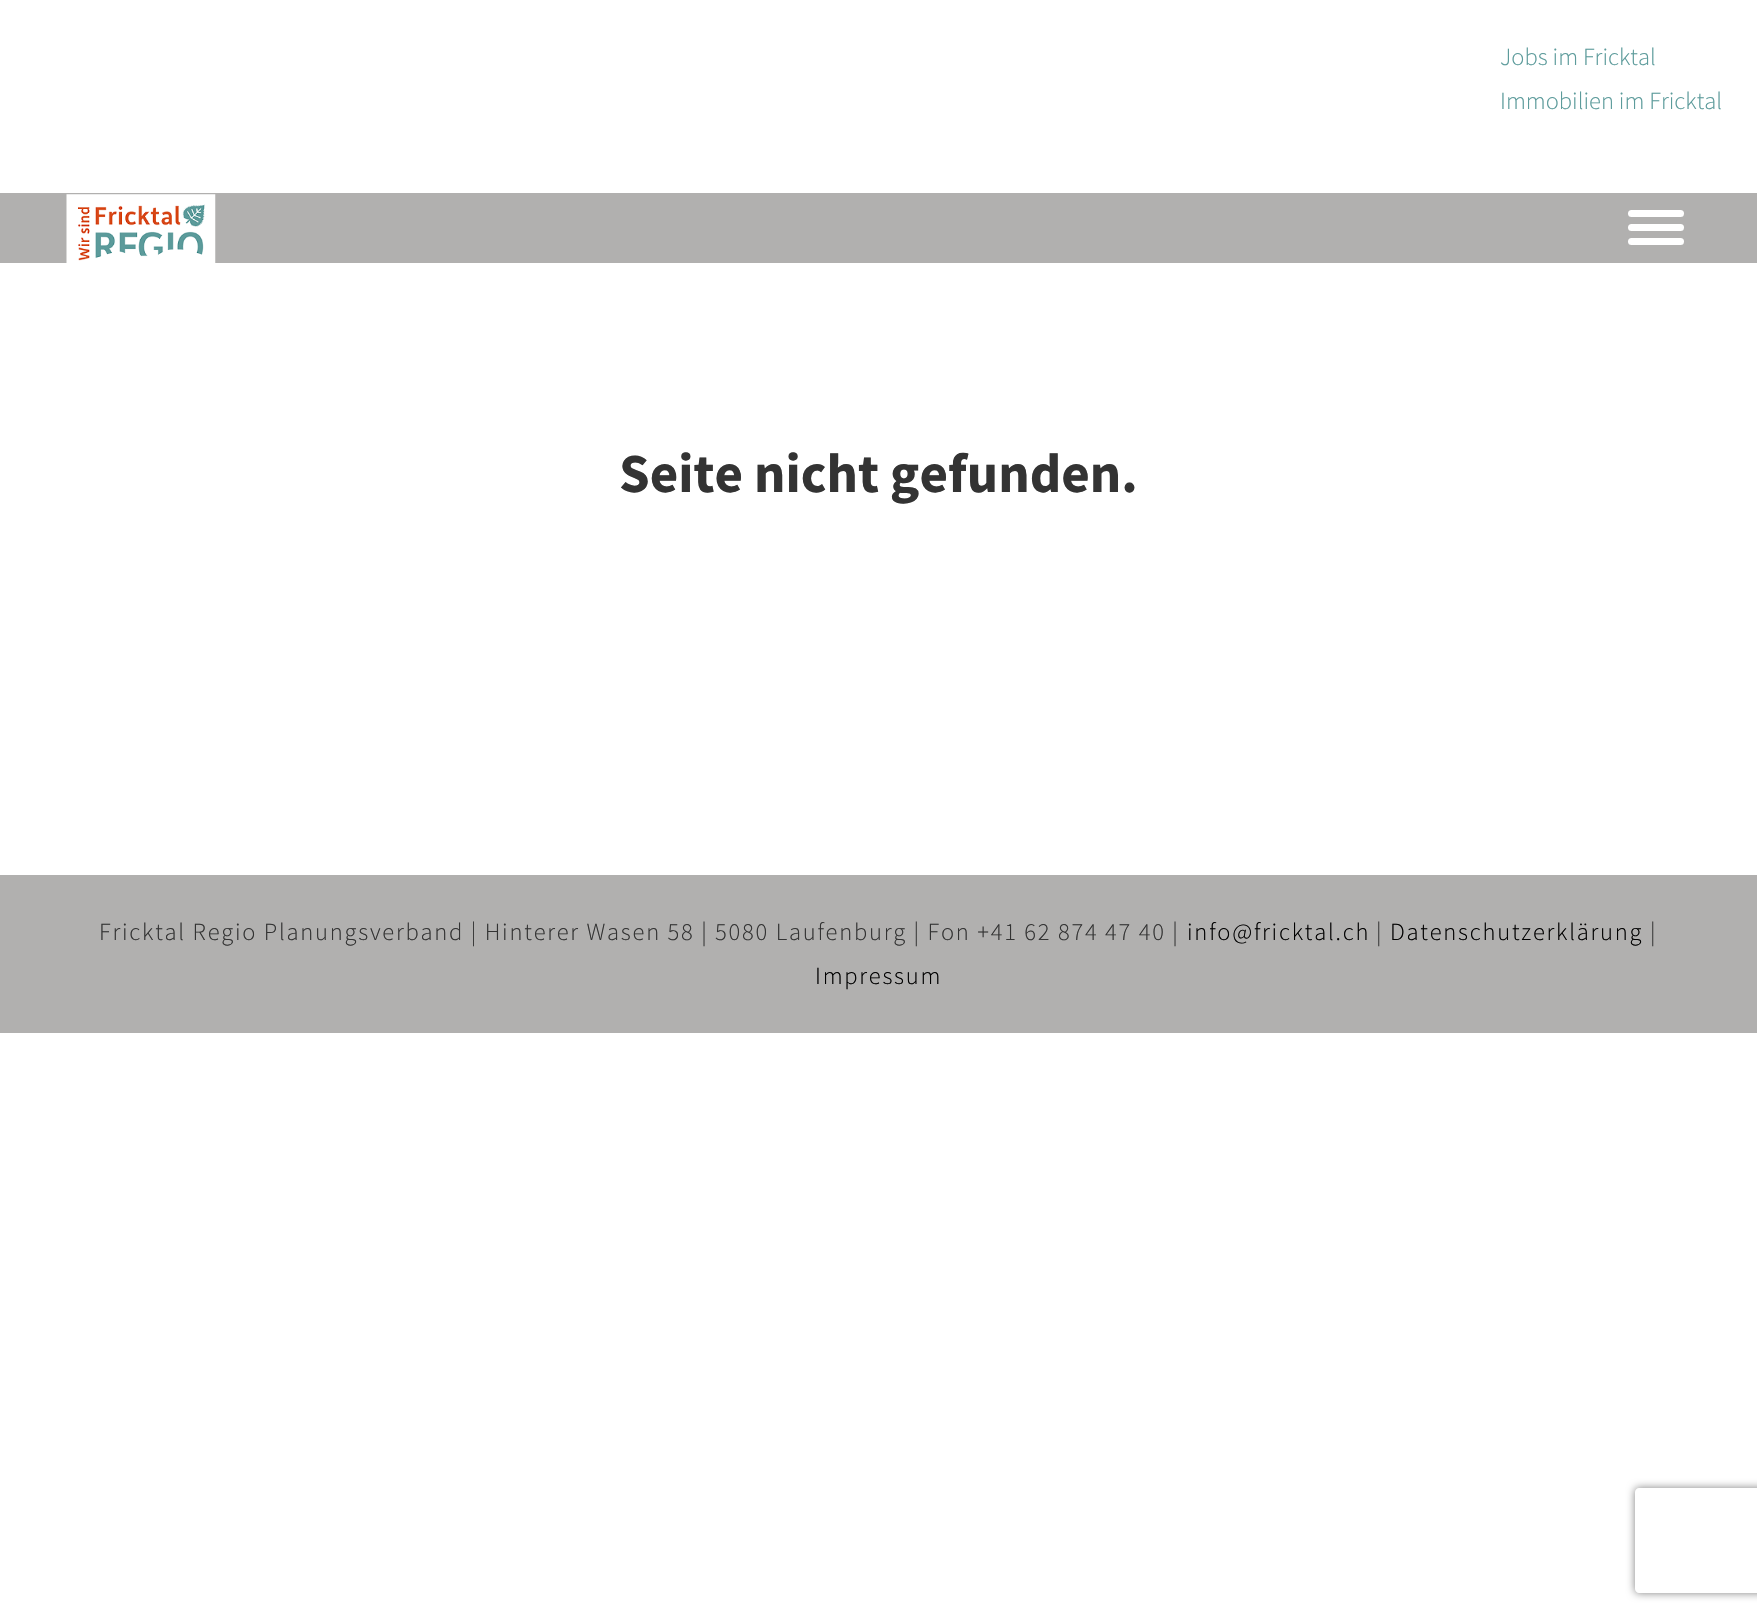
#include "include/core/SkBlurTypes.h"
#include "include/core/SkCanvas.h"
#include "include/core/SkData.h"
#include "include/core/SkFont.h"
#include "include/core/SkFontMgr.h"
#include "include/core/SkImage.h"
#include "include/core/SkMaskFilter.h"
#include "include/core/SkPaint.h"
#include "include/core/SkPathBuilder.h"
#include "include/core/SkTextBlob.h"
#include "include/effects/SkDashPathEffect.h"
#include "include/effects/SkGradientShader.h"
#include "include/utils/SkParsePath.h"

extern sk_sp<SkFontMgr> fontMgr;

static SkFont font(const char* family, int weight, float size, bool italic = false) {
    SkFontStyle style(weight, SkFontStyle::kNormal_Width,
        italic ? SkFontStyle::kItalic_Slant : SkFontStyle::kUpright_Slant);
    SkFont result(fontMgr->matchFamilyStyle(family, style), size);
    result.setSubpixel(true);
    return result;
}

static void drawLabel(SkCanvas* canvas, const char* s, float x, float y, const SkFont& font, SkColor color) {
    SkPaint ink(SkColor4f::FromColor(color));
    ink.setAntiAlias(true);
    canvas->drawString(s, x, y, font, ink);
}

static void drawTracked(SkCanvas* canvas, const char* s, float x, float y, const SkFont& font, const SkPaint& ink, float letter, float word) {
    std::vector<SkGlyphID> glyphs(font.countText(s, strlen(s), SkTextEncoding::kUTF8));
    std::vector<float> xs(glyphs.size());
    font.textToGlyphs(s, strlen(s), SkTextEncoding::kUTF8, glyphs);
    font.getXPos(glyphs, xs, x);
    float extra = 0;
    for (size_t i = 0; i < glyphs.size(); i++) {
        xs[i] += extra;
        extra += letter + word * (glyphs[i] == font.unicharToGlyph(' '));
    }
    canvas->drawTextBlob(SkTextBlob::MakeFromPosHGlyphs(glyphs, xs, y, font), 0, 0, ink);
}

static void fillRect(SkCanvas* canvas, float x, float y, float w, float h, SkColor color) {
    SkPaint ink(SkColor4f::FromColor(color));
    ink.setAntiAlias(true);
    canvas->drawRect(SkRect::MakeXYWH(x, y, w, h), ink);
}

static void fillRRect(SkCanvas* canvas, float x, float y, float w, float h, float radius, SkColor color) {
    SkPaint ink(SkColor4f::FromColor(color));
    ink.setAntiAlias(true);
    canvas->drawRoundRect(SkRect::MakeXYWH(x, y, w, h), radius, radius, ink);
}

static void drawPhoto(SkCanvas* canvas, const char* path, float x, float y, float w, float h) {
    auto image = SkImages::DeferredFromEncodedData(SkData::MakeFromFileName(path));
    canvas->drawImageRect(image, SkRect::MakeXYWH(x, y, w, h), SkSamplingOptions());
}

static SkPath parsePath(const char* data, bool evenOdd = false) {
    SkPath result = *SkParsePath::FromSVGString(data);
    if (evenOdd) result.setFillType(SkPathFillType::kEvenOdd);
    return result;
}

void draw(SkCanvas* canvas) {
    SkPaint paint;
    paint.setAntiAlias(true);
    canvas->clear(0xFFFFFFFF);
    SkFont font1 = font("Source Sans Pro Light", 300, 24.5f);
    drawLabel(canvas, "Jobs im Fricktal", 1500, 65, font1, 0xFF5C9B9B);
    drawLabel(canvas, "Immobilien im Fricktal", 1500, 109, font1, 0xFF5C9B9B);
    fillRect(canvas, 0, 193, 1757, 70, 0xFFB1B0AF);
    drawPhoto(canvas, "assets/img1.png", 66, 194, 150, 69);
    fillRRect(canvas, 1628, 210, 56, 7, 3.5f, 0xFFFFFFFF);
    fillRRect(canvas, 1628, 224, 56, 7, 3.5f, 0xFFFFFFFF);
    fillRRect(canvas, 1628, 238, 56, 7, 3.5f, 0xFFFFFFFF);
    SkFont font2 = font("Source Sans Pro", 700, 55.1f);
    drawLabel(canvas, "Seite nicht gefunden.", 619, 492, font2, 0xFF333333);
    fillRect(canvas, 0, 875, 1757, 158, 0xFFB1B0AF);
    paint.setColor(0xFF333333);
    drawTracked(canvas, "Fricktal Regio Planungsverband | Hinterer Wasen 58 | 5080 Laufenburg | Fon +41 62 874 47 40 |", 99, 940, font1, paint, 1.75f, 0);
    paint.setColor(0xFF000000);
    drawTracked(canvas, "info@fricktal.ch", 1187, 940, font1, paint, 1.75f, 0);
    paint.setColor(0xFF333333);
    drawTracked(canvas, "|", 1376, 940, font1, paint, 1.75f, 0);
    paint.setColor(0xFF000000);
    drawTracked(canvas, "Datenschutzerklärung", 1390, 940, font1, paint, 1.75f, 0);
    paint.setColor(0xFF333333);
    drawTracked(canvas, "|", 1650, 940, font1, paint, 1.75f, 0);
    paint.setColor(0xFF000000);
    drawTracked(canvas, "Impressum", 815, 984, font1, paint, 1.75f, 0);
    canvas->save();
    canvas->clipPath(parsePath("M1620 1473H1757V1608H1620ZM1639 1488H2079C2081 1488 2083 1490 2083 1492V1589C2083 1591 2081 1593 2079 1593H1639C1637 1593 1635 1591 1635 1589V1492C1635 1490 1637 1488 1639 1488Z", true), true);
    paint.setColor(0xFF808080);
    paint.setMaskFilter(SkMaskFilter::MakeBlur(kNormal_SkBlurStyle, 4.5f));
    canvas->drawRoundRect(SkRect::MakeXYWH(1635, 1488, 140, 105), 4, 4, paint);
    paint.setMaskFilter(nullptr);
    canvas->restore();
}
